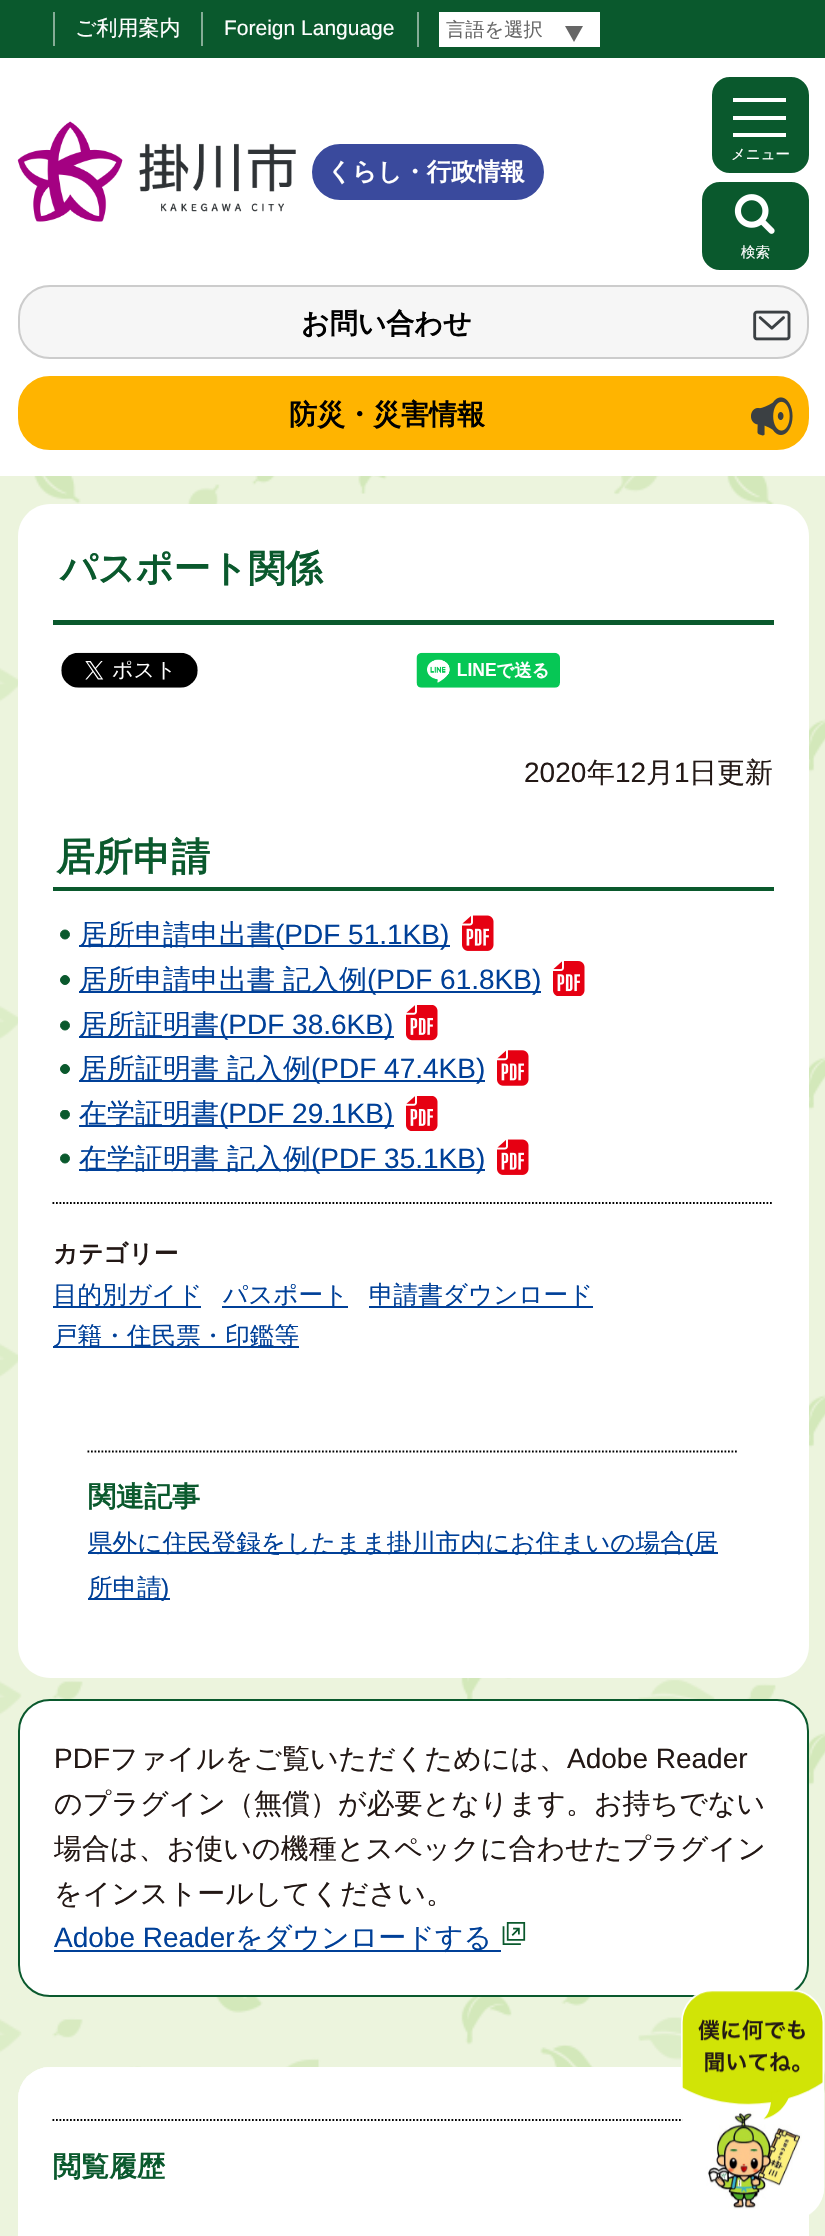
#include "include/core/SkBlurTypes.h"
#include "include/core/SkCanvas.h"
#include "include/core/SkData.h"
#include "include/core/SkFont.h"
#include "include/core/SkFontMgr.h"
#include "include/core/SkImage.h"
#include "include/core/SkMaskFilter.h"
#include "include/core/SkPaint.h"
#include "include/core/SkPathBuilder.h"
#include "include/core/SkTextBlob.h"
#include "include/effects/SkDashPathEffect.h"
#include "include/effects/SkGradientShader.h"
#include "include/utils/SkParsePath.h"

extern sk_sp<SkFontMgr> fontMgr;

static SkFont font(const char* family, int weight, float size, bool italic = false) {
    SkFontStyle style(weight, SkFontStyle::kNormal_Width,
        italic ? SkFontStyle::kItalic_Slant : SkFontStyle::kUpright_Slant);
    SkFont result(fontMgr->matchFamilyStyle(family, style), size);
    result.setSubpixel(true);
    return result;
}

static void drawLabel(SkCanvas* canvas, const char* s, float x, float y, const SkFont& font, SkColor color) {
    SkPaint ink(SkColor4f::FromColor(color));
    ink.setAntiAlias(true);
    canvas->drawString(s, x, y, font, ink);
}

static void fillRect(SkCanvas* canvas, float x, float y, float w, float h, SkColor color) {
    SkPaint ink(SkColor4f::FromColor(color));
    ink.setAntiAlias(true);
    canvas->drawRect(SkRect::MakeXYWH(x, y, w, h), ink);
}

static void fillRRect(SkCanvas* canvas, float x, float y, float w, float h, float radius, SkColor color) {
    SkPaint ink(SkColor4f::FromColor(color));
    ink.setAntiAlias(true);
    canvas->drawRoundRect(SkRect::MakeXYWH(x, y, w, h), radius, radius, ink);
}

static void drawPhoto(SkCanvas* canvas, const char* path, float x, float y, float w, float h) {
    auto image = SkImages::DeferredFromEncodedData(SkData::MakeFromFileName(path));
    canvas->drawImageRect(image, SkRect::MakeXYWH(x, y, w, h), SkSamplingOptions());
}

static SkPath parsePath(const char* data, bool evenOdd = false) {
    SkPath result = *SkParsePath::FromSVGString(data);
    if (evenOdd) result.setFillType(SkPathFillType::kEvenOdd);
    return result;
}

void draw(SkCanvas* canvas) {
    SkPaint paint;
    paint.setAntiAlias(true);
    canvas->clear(0xFFFFFFFF);
    fillRect(canvas, 0, 0, 825, 58, 0xFF0A592D);
    fillRect(canvas, 53, 12, 2, 34, 0xFF85AC96);
    SkFont font1 = font("WenQuanYi Zen Hei", 500, 21);
    drawLabel(canvas, "ご利用案内", 75, 35, font1, 0xFFFFFFFF);
    fillRect(canvas, 201, 12, 2, 34, 0xFF85AC96);
    SkFont font2 = font("Liberation Sans", 400, 21);
    drawLabel(canvas, "Foreign Language", 224, 35, font2, 0xFFFFFFFF);
    fillRect(canvas, 417, 12, 2, 35, 0xFF85AC96);
    fillRect(canvas, 439, 12, 161, 35, 0xFFFFFFFF);
    SkFont font3 = font("WenQuanYi Zen Hei", 500, 19.25f);
    drawLabel(canvas, "言語を選択", 446, 36, font3, 0xFF666666);
    paint.setColor(0xFF666666);
    canvas->drawPath(parsePath("M565 26H583L574 42Z"), paint);
    paint.setColor(0xFF0A592D);
    canvas->drawRoundRect(SkRect::MakeXYWH(713, 78, 95, 94), 17, 17, paint);
    paint.setStroke(true);
    paint.setStrokeWidth(2);
    canvas->drawRoundRect(SkRect::MakeXYWH(713, 78, 95, 94), 17, 17, paint);
    fillRect(canvas, 733, 98, 53, 4, 0xFFFFFFFF);
    fillRect(canvas, 733, 116, 53, 4, 0xFFFFFFFF);
    fillRect(canvas, 733, 133, 53, 4, 0xFFFFFFFF);
    SkFont font4 = font("WenQuanYi Zen Hei", 500, 14.5f);
    drawLabel(canvas, "メニュー", 731, 159, font4, 0xFFFFFFFF);
    drawPhoto(canvas, "assets/img1.png", 17, 121, 279, 101);
    paint.setStroke(false);
    paint.setColor(0xFF3A4A9D);
    canvas->drawRoundRect(SkRect::MakeXYWH(313, 145, 230, 54), 27, 27, paint);
    paint.setStroke(true);
    canvas->drawRoundRect(SkRect::MakeXYWH(313, 145, 230, 54), 27, 27, paint);
    SkFont font5 = font("WenQuanYi Zen Hei", 700, 24.5f);
    drawLabel(canvas, "くらし・行政情報", 327, 180, font5, 0xFFFFFFFF);
    paint.setStroke(false);
    paint.setColor(0xFFF6F6F6);
    canvas->drawRoundRect(SkRect::MakeXYWH(19, 286, 789, 72), 31, 31, paint);
    paint.setStroke(true);
    paint.setColor(0xFFCCCCCC);
    canvas->drawRoundRect(SkRect::MakeXYWH(19, 286, 789, 72), 31, 31, paint);
    SkFont font6 = font("WenQuanYi Zen Hei", 700, 28);
    drawLabel(canvas, "お問い合わせ", 301, 333, font6, 0xFF000000);
    drawPhoto(canvas, "assets/img2.png", 753, 310, 38, 31);
    paint.setStroke(false);
    paint.setColor(0xFFFFB400);
    canvas->drawRoundRect(SkRect::MakeXYWH(19, 377, 789, 72), 31, 31, paint);
    paint.setStroke(true);
    canvas->drawRoundRect(SkRect::MakeXYWH(19, 377, 789, 72), 31, 31, paint);
    drawLabel(canvas, "防災・災害情報", 289, 424, font6, 0xFF000000);
    drawPhoto(canvas, "assets/img3.png", 751, 397, 42, 39);
    paint.setStroke(false);
    paint.setColor(0xFF0A592D);
    canvas->drawRoundRect(SkRect::MakeXYWH(703, 183, 105, 86), 17, 17, paint);
    paint.setStroke(true);
    canvas->drawRoundRect(SkRect::MakeXYWH(703, 183, 105, 86), 17, 17, paint);
    drawPhoto(canvas, "assets/img4.png", 734, 194, 41, 40);
    drawLabel(canvas, "検索", 741, 257, font4, 0xFFFFFFFF);
    fillRect(canvas, 0, 476, 825, 1760, 0xFFECF4DD);
    drawPhoto(canvas, "assets/img5.png", 0, 476, 825, 1617);
    paint.setStroke(false);
    paint.setColor(0xFFFFFFFF);
    canvas->drawPath(parsePath("M50 504H777C794.5 504 809 518.5 809 536V625H18V536C18 518.5 32.5 504 50 504Z"), paint);
    fillRect(canvas, 53, 620, 721, 5, 0xFF0A592D);
    SkFont font7 = font("WenQuanYi Zen Hei", 700, 37);
    drawLabel(canvas, "パスポート関係", 60, 581, font7, 0xFF0A592D);
    fillRect(canvas, 18, 625, 791, 91, 0xFFFFFFFF);
    drawPhoto(canvas, "assets/img6.png", 61, 652, 137, 36);
    drawPhoto(canvas, "assets/img7.png", 416, 652, 144, 36);
    canvas->drawPath(parsePath("M18 716H809V1646C809 1663.5 794.5 1678 777 1678H50C32.5 1678 18 1663.5 18 1646Z"), paint);
    SkFont font8 = font("Liberation Sans", 400, 28);
    drawLabel(canvas, "2020", 524, 782, font8, 0xFF231815);
    SkFont font9 = font("WenQuanYi Zen Hei", 500, 28);
    drawLabel(canvas, "年", 587, 782, font9, 0xFF231815);
    drawLabel(canvas, "12", 615, 782, font8, 0xFF231815);
    drawLabel(canvas, "月", 646, 782, font9, 0xFF231815);
    drawLabel(canvas, "1", 674, 782, font8, 0xFF231815);
    drawLabel(canvas, "日更新", 689, 782, font9, 0xFF231815);
    fillRect(canvas, 53, 887, 721, 4, 0xFF0A592D);
    SkFont font10 = font("WenQuanYi Zen Hei", 700, 38.5f);
    drawLabel(canvas, "居所申請", 56, 870, font10, 0xFF0A592D);
    paint.setColor(0xFF0A592D);
    canvas->drawCircle(65, 934.5f, 4.5f, paint);
    paint.setStroke(true);
    paint.setStrokeWidth(1);
    canvas->drawCircle(65, 934.5f, 4.5f, paint);
    fillRect(canvas, 79, 945, 371, 2, 0xFF004098);
    drawLabel(canvas, "居所申請申出書", 79, 944, font9, 0xFF004098);
    drawLabel(canvas, "(PDF 51.1KB)", 275, 944, font8, 0xFF004098);
    drawPhoto(canvas, "assets/img8.png", 462, 915, 32, 36);
    paint.setStroke(false);
    canvas->drawCircle(65, 980, 4.5f, paint);
    paint.setStroke(true);
    canvas->drawCircle(65, 980, 4.5f, paint);
    fillRect(canvas, 79, 991, 462, 2, 0xFF004098);
    drawLabel(canvas, "居所申請申出書", 79, 989, font9, 0xFF004098);
    drawLabel(canvas, "記入例", 283, 989, font9, 0xFF004098);
    drawLabel(canvas, "(PDF 61.8KB)", 367, 989, font8, 0xFF004098);
    drawPhoto(canvas, "assets/img9.png", 553, 961, 32, 35);
    paint.setStroke(false);
    canvas->drawCircle(65, 1025.5f, 4.5f, paint);
    paint.setStroke(true);
    canvas->drawCircle(65, 1025.5f, 4.5f, paint);
    fillRect(canvas, 79, 1036, 315, 2, 0xFF004098);
    drawLabel(canvas, "居所証明書", 79, 1034, font9, 0xFF004098);
    drawLabel(canvas, "(PDF 38.6KB)", 219, 1034, font8, 0xFF004098);
    drawPhoto(canvas, "assets/img10.png", 406, 1005, 32, 36);
    paint.setStroke(false);
    canvas->drawCircle(65, 1069, 4.5f, paint);
    paint.setStroke(true);
    canvas->drawCircle(65, 1069, 4.5f, paint);
    fillRect(canvas, 79, 1080, 406, 2, 0xFF004098);
    drawLabel(canvas, "居所証明書", 79, 1078, font9, 0xFF004098);
    drawLabel(canvas, "記入例", 227, 1078, font9, 0xFF004098);
    drawLabel(canvas, "(PDF 47.4KB)", 311, 1078, font8, 0xFF004098);
    drawPhoto(canvas, "assets/img11.png", 497, 1050, 32, 36);
    paint.setStroke(false);
    canvas->drawCircle(65, 1114.5f, 4.5f, paint);
    canvas->save();
    canvas->clipRect(SkRect::MakeXYWH(60, 1110, 10, 10));
    paint.setStroke(true);
    canvas->drawCircle(65, 1114.5f, 4.5f, paint);
    canvas->restore();
    fillRect(canvas, 79, 1125, 315, 2, 0xFF004098);
    drawLabel(canvas, "在学証明書", 79, 1123, font9, 0xFF004098);
    drawLabel(canvas, "(PDF 29.1KB)", 219, 1123, font8, 0xFF004098);
    drawPhoto(canvas, "assets/img12.png", 406, 1096, 32, 35);
    paint.setStroke(false);
    canvas->drawCircle(65, 1158.5f, 4.5f, paint);
    paint.setStroke(true);
    canvas->drawCircle(65, 1158.5f, 4.5f, paint);
    fillRect(canvas, 79, 1169, 406, 2, 0xFF004098);
    drawLabel(canvas, "在学証明書", 79, 1168, font9, 0xFF004098);
    drawLabel(canvas, "記入例", 227, 1168, font9, 0xFF004098);
    drawLabel(canvas, "(PDF 35.1KB)", 311, 1168, font8, 0xFF004098);
    drawPhoto(canvas, "assets/img8.png", 497, 1139, 32, 36);
    paint.setStrokeWidth(1.8f);
    paint.setColor(0xFF000000);
    paint.setPathEffect(SkDashPathEffect::Make({{1.75f, 1.75f}}, 0));
    canvas->drawPath(parsePath("M52.5 1203H773.5"), paint);
    paint.setPathEffect(nullptr);
    SkFont font11 = font("WenQuanYi Zen Hei", 700, 24.6f);
    drawLabel(canvas, "カテゴリー", 53, 1262, font11, 0xFF231815);
    fillRect(canvas, 53, 1306, 148, 2, 0xFF004098);
    SkFont font12 = font("WenQuanYi Zen Hei", 500, 24.6f);
    drawLabel(canvas, "目的別ガイド", 53, 1303, font12, 0xFF004098);
    fillRect(canvas, 222, 1306, 126, 2, 0xFF004098);
    drawLabel(canvas, "パスポート", 223, 1303, font12, 0xFF004098);
    fillRect(canvas, 369, 1306, 224, 2, 0xFF004098);
    drawLabel(canvas, "申請書ダウンロード", 369, 1303, font12, 0xFF004098);
    fillRect(canvas, 53, 1346, 246, 2, 0xFF004098);
    drawLabel(canvas, "戸籍・住民票・印鑑等", 53, 1344, font12, 0xFF004098);
    paint.setPathEffect(SkDashPathEffect::Make({{1.75f, 1.75f}}, 0));
    canvas->drawPath(parsePath("M87.5 1451.5H738.5"), paint);
    paint.setPathEffect(nullptr);
    drawLabel(canvas, "関連記事", 88, 1506, font6, 0xFF0A592D);
    fillRect(canvas, 88, 1552, 630, 2, 0xFF004098);
    drawLabel(canvas, "県外に住民登録をしたまま掛川市内にお住まいの場合", 88, 1551, font12, 0xFF004098);
    SkFont font13 = font("Liberation Sans", 400, 24.6f);
    drawLabel(canvas, "(", 685, 1551, font13, 0xFF004098);
    drawLabel(canvas, "居", 693, 1551, font12, 0xFF004098);
    fillRect(canvas, 88, 1598, 82, 2, 0xFF004098);
    drawLabel(canvas, "所申請", 88, 1596, font12, 0xFF004098);
    drawLabel(canvas, ")", 161, 1596, font13, 0xFF004098);
    paint.setStroke(false);
    paint.setColor(0xFFFFFFFF);
    canvas->drawRoundRect(SkRect::MakeXYWH(19, 1700, 789, 296), 31, 31, paint);
    paint.setStroke(true);
    paint.setStrokeWidth(2);
    paint.setColor(0xFF0A592D);
    canvas->drawRoundRect(SkRect::MakeXYWH(19, 1700, 789, 296), 31, 31, paint);
    drawLabel(canvas, "PDF", 54, 1768, font8, 0xFF231815);
    drawLabel(canvas, "ファイルをご覧いただくためには、", 110, 1768, font9, 0xFF231815);
    drawLabel(canvas, "Adobe Reader", 567, 1768, font8, 0xFF231815);
    drawLabel(canvas, "のプラグイン（無償）が必要となります。お持ちでない", 54, 1813, font9, 0xFF231815);
    drawLabel(canvas, "場合は、お使いの機種とスペックに合わせたプラグイン", 54, 1858, font9, 0xFF231815);
    drawLabel(canvas, "をインストールしてください。", 54, 1903, font9, 0xFF231815);
    drawLabel(canvas, "Adobe Reader", 54, 1947, font8, 0xFF004098);
    fillRect(canvas, 54, 1950, 447, 2, 0xFF004098);
    drawLabel(canvas, "をダウンロードする", 235, 1947, font9, 0xFF004098);
    drawPhoto(canvas, "assets/img13.png", 502, 1922, 24, 23);
    fillRRect(canvas, 18, 2067, 791, 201, 32, 0xFFFFFFFF);
    fillRRect(canvas, 18, 2067, 791, 157, 32, 0xFFFFFFFF);
    paint.setStrokeWidth(1.8f);
    paint.setColor(0xFF000000);
    paint.setPathEffect(SkDashPathEffect::Make({{1.75f, 1.75f}}, 0));
    canvas->drawPath(parsePath("M52.5 2120H773.5"), paint);
    paint.setPathEffect(nullptr);
    drawLabel(canvas, "閲覧履歴", 53, 2176, font6, 0xFF0A592D);
    drawPhoto(canvas, "assets/img14.png", 681, 1989, 144, 226);
}
